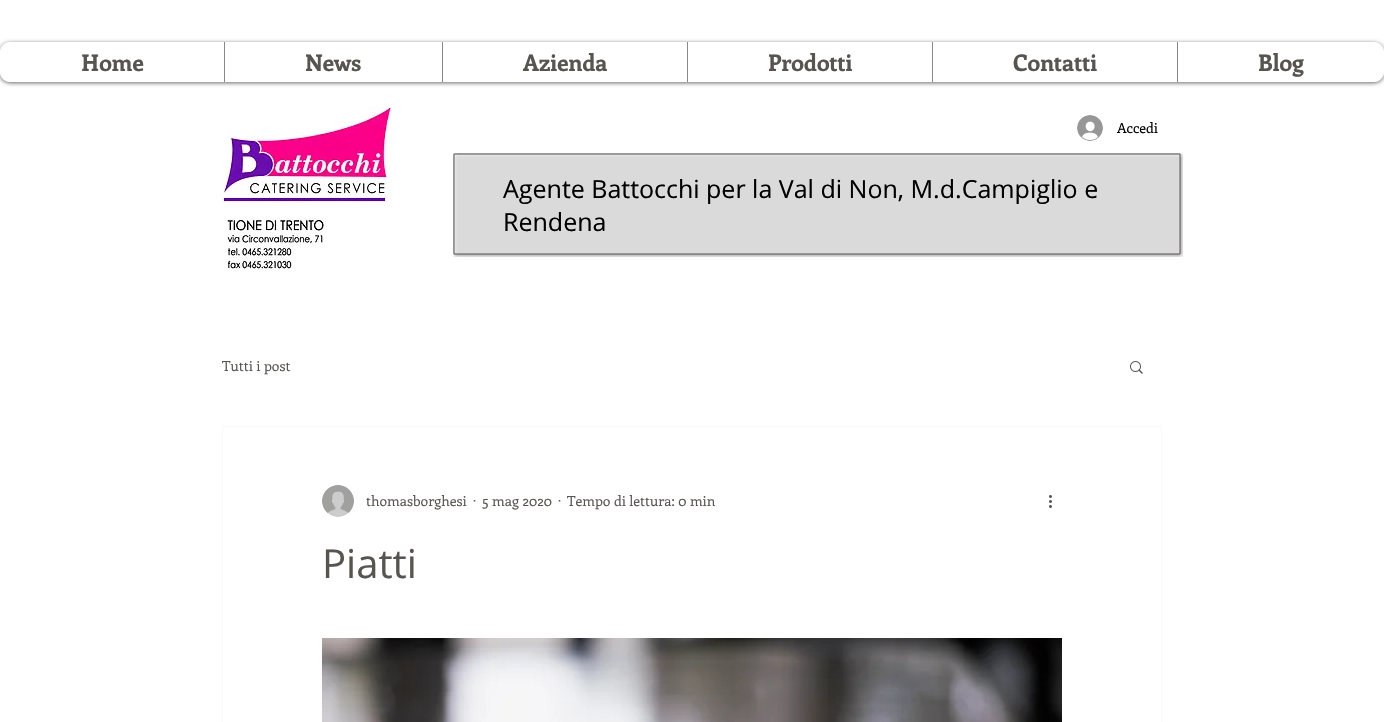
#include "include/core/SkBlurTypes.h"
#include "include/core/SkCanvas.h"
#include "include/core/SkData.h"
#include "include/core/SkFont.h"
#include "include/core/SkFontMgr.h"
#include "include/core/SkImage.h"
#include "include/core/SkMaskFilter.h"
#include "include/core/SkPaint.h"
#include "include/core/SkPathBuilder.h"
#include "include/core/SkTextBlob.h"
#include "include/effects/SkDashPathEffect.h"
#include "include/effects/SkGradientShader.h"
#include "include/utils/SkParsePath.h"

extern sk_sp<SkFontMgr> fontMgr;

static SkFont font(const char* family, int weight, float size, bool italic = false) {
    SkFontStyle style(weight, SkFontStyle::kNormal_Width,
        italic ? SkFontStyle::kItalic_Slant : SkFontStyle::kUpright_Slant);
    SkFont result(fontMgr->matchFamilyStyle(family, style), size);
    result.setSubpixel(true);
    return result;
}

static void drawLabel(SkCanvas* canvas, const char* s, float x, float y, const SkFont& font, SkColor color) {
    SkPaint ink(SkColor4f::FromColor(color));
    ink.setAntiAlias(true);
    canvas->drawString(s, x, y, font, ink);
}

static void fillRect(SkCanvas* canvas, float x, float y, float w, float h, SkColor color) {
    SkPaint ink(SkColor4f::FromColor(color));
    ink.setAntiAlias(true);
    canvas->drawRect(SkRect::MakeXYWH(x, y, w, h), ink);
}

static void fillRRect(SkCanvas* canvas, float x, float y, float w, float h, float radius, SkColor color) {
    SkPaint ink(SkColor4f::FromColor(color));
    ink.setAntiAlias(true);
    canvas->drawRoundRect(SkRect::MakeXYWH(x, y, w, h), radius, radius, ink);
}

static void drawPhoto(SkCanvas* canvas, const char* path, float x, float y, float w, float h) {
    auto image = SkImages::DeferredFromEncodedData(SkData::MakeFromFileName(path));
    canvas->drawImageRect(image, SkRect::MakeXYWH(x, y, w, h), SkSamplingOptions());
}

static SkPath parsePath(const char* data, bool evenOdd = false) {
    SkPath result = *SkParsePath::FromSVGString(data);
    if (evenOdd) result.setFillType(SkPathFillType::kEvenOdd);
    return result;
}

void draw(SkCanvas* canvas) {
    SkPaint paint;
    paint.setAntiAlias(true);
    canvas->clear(0xFFFFFFFF);
    canvas->save();
    canvas->clipPath(parsePath("M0 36H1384V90H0ZM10 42H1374C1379.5 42 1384 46.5 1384 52V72C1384 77.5 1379.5 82 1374 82H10C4.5 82 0 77.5 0 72V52C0 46.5 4.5 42 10 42Z", true), true);
    paint.setColor(0x99000000);
    paint.setMaskFilter(SkMaskFilter::MakeBlur(kNormal_SkBlurStyle, 2));
    canvas->drawRoundRect(SkRect::MakeXYWH(0, 43, 1384, 40), 10, 10, paint);
    paint.setMaskFilter(nullptr);
    canvas->restore();
    fillRRect(canvas, 0, 42, 1384, 40, 10, 0x8FFFFFFF);
    SkFont font1 = font("Enriqueta", 700, 23);
    drawLabel(canvas, "Home", 81, 71, font1, 0xFF585551);
    fillRect(canvas, 224, 42, 1, 40, 0xFF8A8885);
    drawLabel(canvas, "News", 305, 71, font1, 0xFF585551);
    fillRect(canvas, 442, 42, 1, 40, 0xFF8A8885);
    drawLabel(canvas, "Azienda", 523, 71, font1, 0xFF585551);
    fillRect(canvas, 687, 42, 1, 40, 0xFF8A8885);
    drawLabel(canvas, "Prodotti", 768, 71, font1, 0xFF585551);
    fillRect(canvas, 932, 42, 1, 40, 0xFF8A8885);
    drawLabel(canvas, "Contatti", 1013, 71, font1, 0xFF585551);
    fillRect(canvas, 1177, 42, 1, 40, 0xFF8A8885);
    drawLabel(canvas, "Blog", 1258, 71, font1, 0xFF585551);
    drawPhoto(canvas, "assets/img1.png", 222, 106, 170, 164);
    drawPhoto(canvas, "assets/img2.png", 1077, 115, 26, 26);
    SkFont font2 = font("Enriqueta", 400, 14);
    drawLabel(canvas, "Accedi", 1117, 133, font2, 0xFF000000);
    drawPhoto(canvas, "assets/img3.png", 453, 153, 730, 104);
    SkFont font3 = font("Open Sans", 400, 25);
    drawLabel(canvas, "Agente Battocchi per la Val di Non, M.d.Campiglio e", 503, 198, font3, 0xFF000000);
    drawLabel(canvas, "Rendena", 503, 231, font3, 0xFF000000);
    drawLabel(canvas, "Tutti i post", 222, 371, font2, 0xFF585551);
    drawPhoto(canvas, "assets/img4.png", 1130, 361, 13, 13);
    paint.setStroke(true);
    paint.setStrokeWidth(1);
    paint.setColor(0xFFFAFAFA);
    canvas->drawRect(SkRect::MakeXYWH(222.5f, 426.5f, 939, 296), paint);
    drawPhoto(canvas, "assets/img5.png", 322, 485, 32, 32);
    drawLabel(canvas, "thomasborghesi", 366, 506, font2, 0xFF585551);
    drawLabel(canvas, "·", 473, 506, font2, 0xFF585551);
    drawLabel(canvas, "5 mag 2020", 482, 506, font2, 0xFF585551);
    drawLabel(canvas, "·", 558, 506, font2, 0xFF585551);
    drawLabel(canvas, "Tempo di lettura: 0 min", 567, 506, font2, 0xFF585551);
    drawPhoto(canvas, "assets/img6.png", 1049, 495, 3, 13);
    SkFont font4 = font("Open Sans", 400, 40);
    drawLabel(canvas, "Piatti", 322, 578, font4, 0xFF585551);
    drawPhoto(canvas, "assets/img7.png", 322, 638, 740, 84);
}
